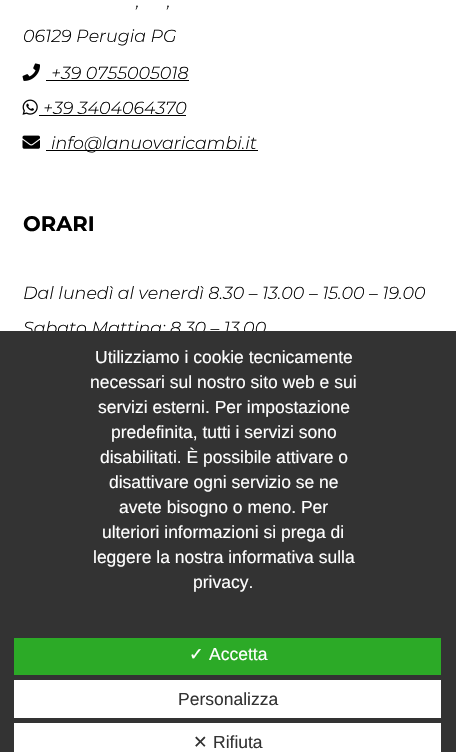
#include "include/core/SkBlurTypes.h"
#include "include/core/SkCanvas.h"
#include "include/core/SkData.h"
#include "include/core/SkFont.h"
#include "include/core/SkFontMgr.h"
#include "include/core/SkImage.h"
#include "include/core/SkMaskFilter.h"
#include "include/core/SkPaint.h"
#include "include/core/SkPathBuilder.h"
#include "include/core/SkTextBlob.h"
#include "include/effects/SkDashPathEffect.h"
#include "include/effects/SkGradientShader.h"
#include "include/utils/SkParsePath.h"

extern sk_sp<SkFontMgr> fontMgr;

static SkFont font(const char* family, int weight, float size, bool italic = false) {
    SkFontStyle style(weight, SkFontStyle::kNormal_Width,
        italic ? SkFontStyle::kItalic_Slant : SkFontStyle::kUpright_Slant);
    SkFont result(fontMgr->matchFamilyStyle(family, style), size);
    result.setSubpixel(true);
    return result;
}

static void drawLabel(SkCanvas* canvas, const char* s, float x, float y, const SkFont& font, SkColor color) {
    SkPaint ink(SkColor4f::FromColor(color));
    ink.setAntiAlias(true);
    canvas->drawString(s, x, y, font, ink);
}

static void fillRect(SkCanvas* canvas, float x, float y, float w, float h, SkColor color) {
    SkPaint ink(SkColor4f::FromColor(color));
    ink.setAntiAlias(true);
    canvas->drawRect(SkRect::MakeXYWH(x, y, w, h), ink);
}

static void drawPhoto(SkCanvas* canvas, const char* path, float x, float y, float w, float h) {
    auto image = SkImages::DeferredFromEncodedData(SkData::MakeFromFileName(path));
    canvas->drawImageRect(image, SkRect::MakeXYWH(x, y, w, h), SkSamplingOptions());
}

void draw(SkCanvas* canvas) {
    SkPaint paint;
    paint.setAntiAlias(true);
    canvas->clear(0xFFFFFFFF);
    SkFont font1 = font("Montserrat", 100, 17.5f, true);
    drawLabel(canvas, ",", 136, 7, font1, 0xFF000000);
    drawLabel(canvas, ",", 167, 7, font1, 0xFF000000);
    drawLabel(canvas, "06129 Perugia PG", 23, 42, font1, 0xFF000000);
    drawPhoto(canvas, "assets/img1.png", 22, 63, 18, 18);
    drawLabel(canvas, "+39 0755005018", 51, 79, font1, 0xFF000000);
    fillRect(canvas, 46, 80, 143, 1, 0xFF000000);
    drawPhoto(canvas, "assets/img2.png", 22, 99, 16, 16);
    drawLabel(canvas, "+39 3404064370", 43, 114, font1, 0xFF000000);
    fillRect(canvas, 39, 115, 147, 1, 0xFF000000);
    drawPhoto(canvas, "assets/img3.png", 22, 135, 18, 14);
    fillRect(canvas, 46, 150, 212, 1, 0xFF000000);
    drawLabel(canvas, "info@lanuovaricambi.it", 51, 149, font1, 0xFF000000);
    SkFont font2 = font("Montserrat", 100, 21);
    drawLabel(canvas, "ORARI", 23, 231, font2, 0xFF000000);
    drawLabel(canvas, "Dal lunedì al venerdì 8.30 – 13.00 – 15.00 – 19.00", 23, 299, font1, 0xFF000000);
    drawLabel(canvas, "Sabato Mattina: 8.30 – 13.00", 23, 334, font1, 0xFF000000);
    fillRect(canvas, 0, 331, 456, 421, 0xFF333333);
    SkFont font3 = font("Liberation Sans", 400, 17.5f);
    drawLabel(canvas, "Utilizziamo i cookie tecnicamente", 95, 363, font3, 0xFFFFFFFF);
    drawLabel(canvas, "necessari sul nostro sito web e sui", 90, 388, font3, 0xFFFFFFFF);
    drawLabel(canvas, "servizi esterni. Per impostazione", 98, 413, font3, 0xFFFFFFFF);
    drawLabel(canvas, "predefinita, tutti i servizi sono", 111, 438, font3, 0xFFFFFFFF);
    drawLabel(canvas, "disabilitati. È possibile attivare o", 100, 463, font3, 0xFFFFFFFF);
    drawLabel(canvas, "disattivare ogni servizio se ne", 109, 488, font3, 0xFFFFFFFF);
    drawLabel(canvas, "avete bisogno o meno. Per", 119, 513, font3, 0xFFFFFFFF);
    drawLabel(canvas, "ulteriori informazioni si prega di", 102, 538, font3, 0xFFFFFFFF);
    drawLabel(canvas, "leggere la nostra informativa sulla", 93, 563, font3, 0xFFFFFFFF);
    drawLabel(canvas, "privacy.", 193, 588, font3, 0xFFFFFFFF);
    fillRect(canvas, 14, 638, 427, 37, 0xFF2CAA27);
    SkFont font4 = font("DejaVu Sans", 400, 17.5f);
    drawLabel(canvas, "✓", 189, 660, font4, 0xFFFFFFFF);
    drawLabel(canvas, "Accetta", 209, 660, font3, 0xFFFFFFFF);
    fillRect(canvas, 14, 680, 427, 38, 0xFFFFFFFF);
    drawLabel(canvas, "Personalizza", 178, 705, font3, 0xFF333333);
    fillRect(canvas, 14, 723, 427, 29, 0xFFFFFFFF);
    drawLabel(canvas, "✕", 193, 748, font4, 0xFF333333);
    drawLabel(canvas, "Rifiuta", 213, 748, font3, 0xFF333333);
}
